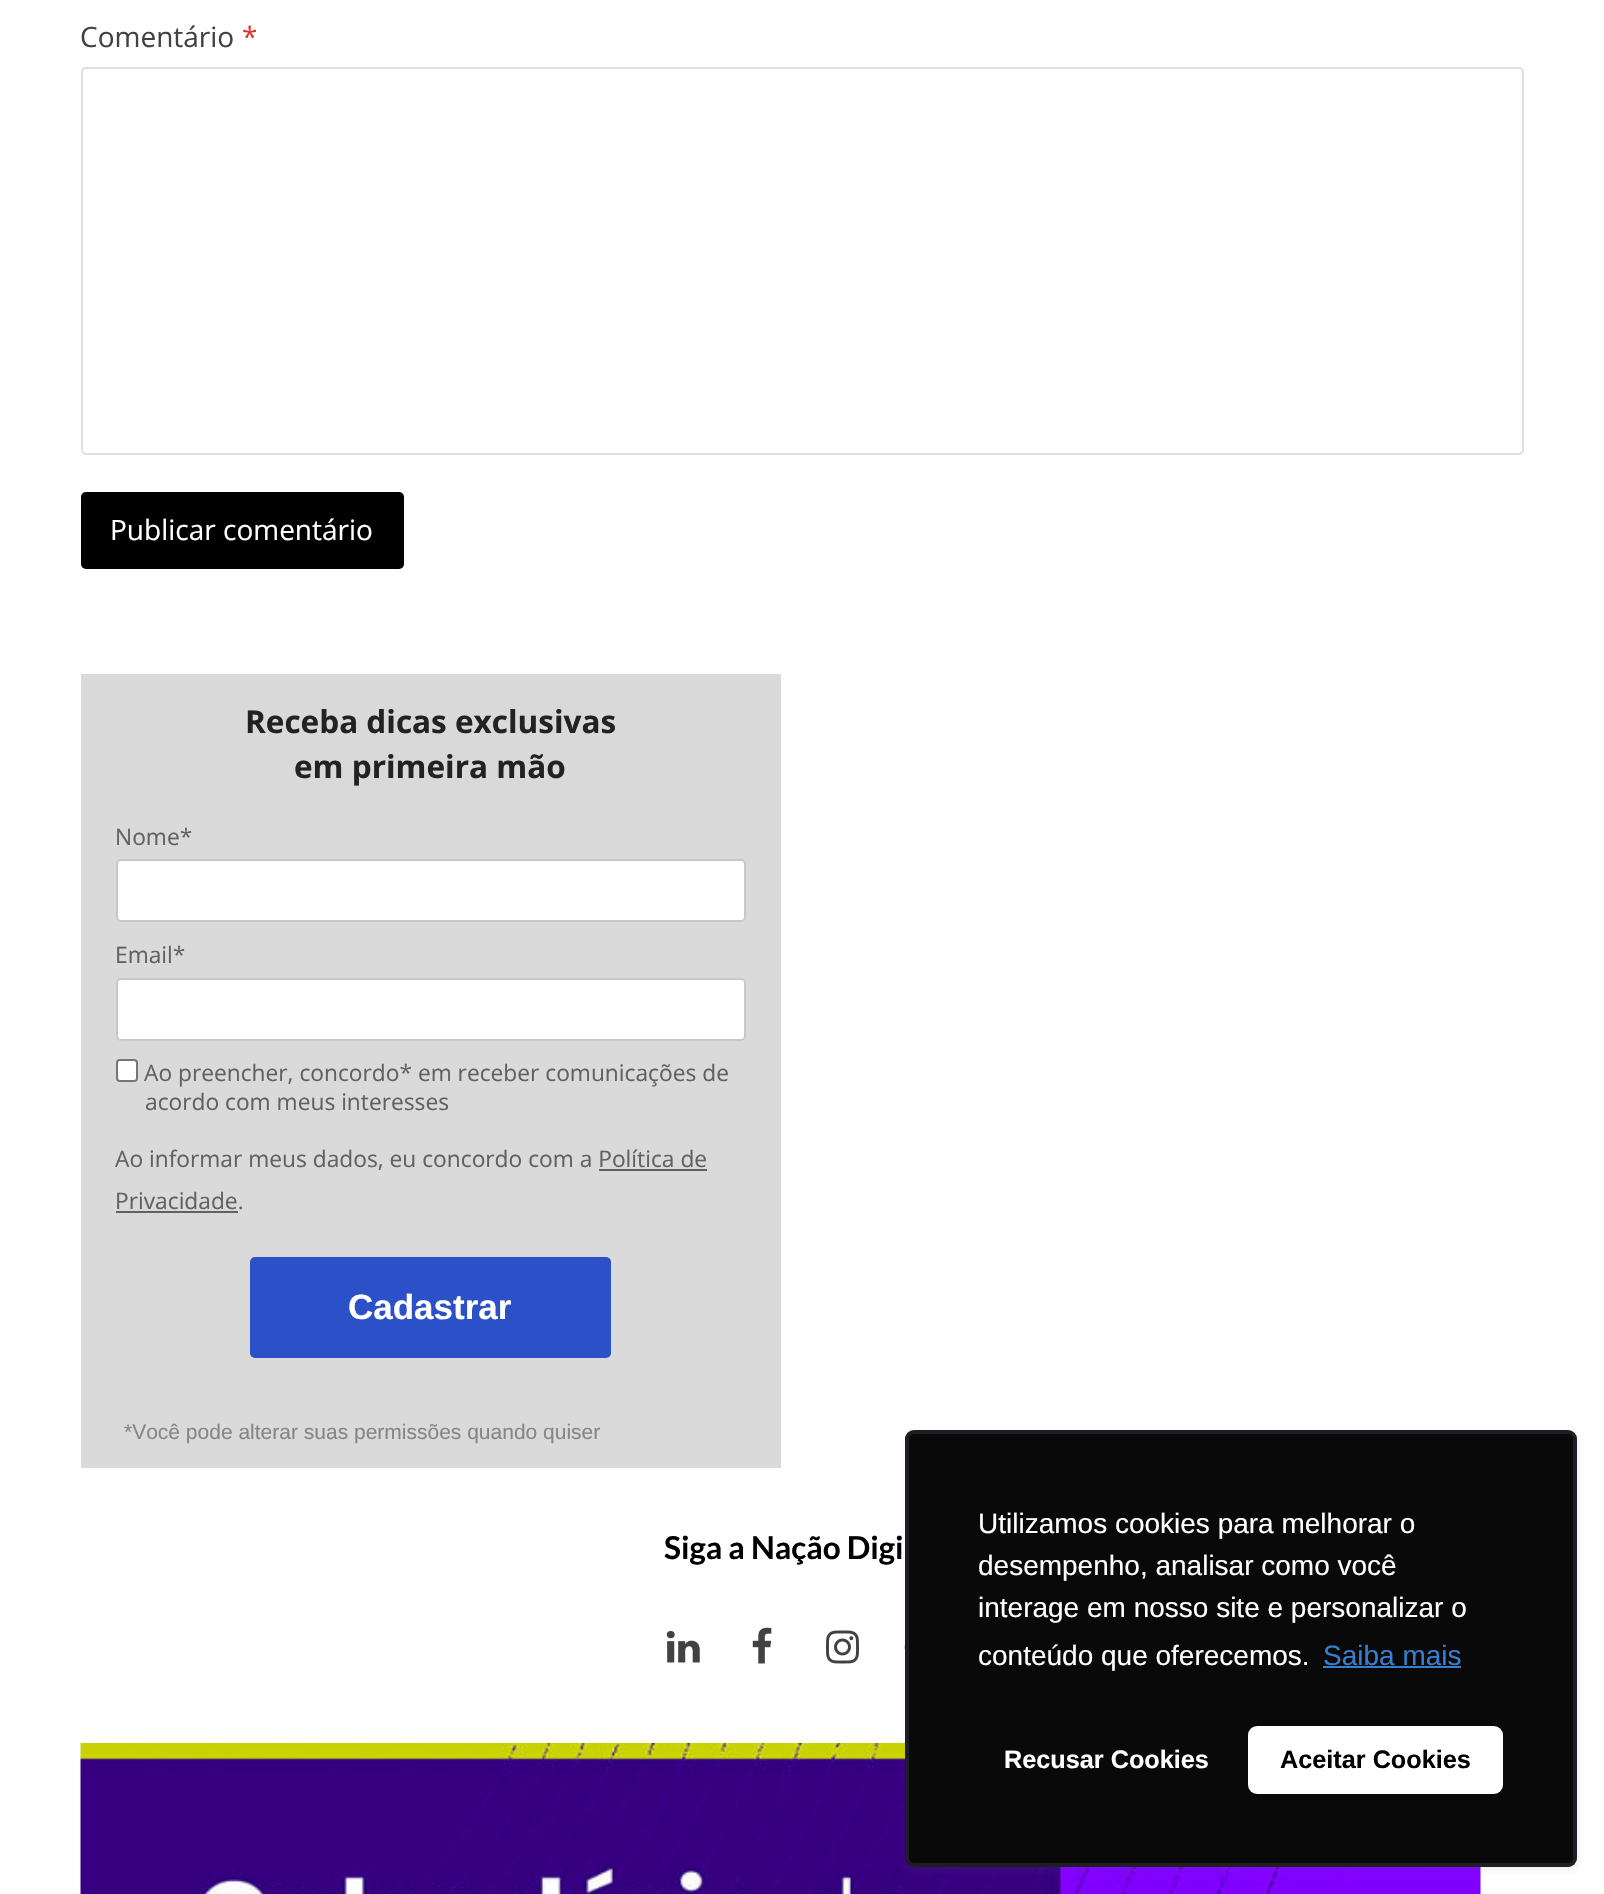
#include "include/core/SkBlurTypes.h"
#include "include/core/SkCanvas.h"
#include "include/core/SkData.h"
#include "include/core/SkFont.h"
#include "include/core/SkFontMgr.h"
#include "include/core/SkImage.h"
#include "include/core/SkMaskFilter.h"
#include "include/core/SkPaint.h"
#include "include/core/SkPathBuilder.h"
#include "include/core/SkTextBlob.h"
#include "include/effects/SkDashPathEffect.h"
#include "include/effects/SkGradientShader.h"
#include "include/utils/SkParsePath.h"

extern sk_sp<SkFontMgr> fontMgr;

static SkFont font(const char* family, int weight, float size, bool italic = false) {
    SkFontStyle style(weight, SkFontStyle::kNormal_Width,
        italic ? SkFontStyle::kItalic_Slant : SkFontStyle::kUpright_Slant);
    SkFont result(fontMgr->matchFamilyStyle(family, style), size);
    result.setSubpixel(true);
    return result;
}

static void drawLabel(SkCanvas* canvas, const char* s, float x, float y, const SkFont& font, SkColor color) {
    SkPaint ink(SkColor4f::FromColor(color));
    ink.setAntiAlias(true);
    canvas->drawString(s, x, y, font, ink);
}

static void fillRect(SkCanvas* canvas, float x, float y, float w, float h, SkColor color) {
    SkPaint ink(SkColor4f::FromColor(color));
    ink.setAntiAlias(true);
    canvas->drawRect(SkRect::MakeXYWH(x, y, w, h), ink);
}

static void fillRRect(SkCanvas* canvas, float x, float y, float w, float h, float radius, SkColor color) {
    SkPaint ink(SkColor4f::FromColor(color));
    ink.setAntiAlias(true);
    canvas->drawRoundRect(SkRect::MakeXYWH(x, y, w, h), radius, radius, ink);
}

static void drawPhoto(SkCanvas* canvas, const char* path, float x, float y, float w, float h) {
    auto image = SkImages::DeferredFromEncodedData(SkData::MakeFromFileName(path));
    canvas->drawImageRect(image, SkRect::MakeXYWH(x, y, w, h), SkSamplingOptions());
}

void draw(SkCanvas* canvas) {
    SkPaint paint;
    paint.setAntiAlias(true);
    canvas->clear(0xFFFFFFFF);
    SkFont font1 = font("Open Sans", 400, 28);
    drawLabel(canvas, "Comentário", 80, 47, font1, 0xFF424242);
    drawLabel(canvas, "*", 242, 47, font1, 0xFFDC3232);
    paint.setStroke(true);
    paint.setStrokeWidth(2);
    paint.setColor(0xFFE0E0E0);
    canvas->drawRoundRect(SkRect::MakeXYWH(82, 68, 1441, 386), 4, 4, paint);
    fillRRect(canvas, 81, 492, 323, 77, 5, 0xFF000000);
    drawLabel(canvas, "Publicar comentário", 110, 540, font1, 0xFFFFFFFF);
    fillRect(canvas, 81, 674, 700, 133, 0xFFD9D9D9);
    SkFont font2 = font("Open Sans", 700, 31.5f);
    drawLabel(canvas, "Receba dicas exclusivas", 245, 733, font2, 0xFF222222);
    drawLabel(canvas, "em primeira mão", 294, 778, font2, 0xFF222222);
    fillRect(canvas, 81, 807, 700, 661, 0xFFDADADA);
    SkFont font3 = font("Open Sans", 400, 22.75f);
    drawLabel(canvas, "Nome*", 115, 845, font3, 0xFF616161);
    paint.setStroke(false);
    paint.setColor(0xFFFFFFFF);
    canvas->drawRoundRect(SkRect::MakeXYWH(117, 860, 628, 61), 4, 4, paint);
    paint.setStroke(true);
    paint.setColor(0xFFC8C8C8);
    canvas->drawRoundRect(SkRect::MakeXYWH(117, 860, 628, 61), 4, 4, paint);
    drawLabel(canvas, "Email*", 115, 963, font3, 0xFF616161);
    paint.setStroke(false);
    paint.setColor(0xFFFFFFFF);
    canvas->drawRoundRect(SkRect::MakeXYWH(117, 979, 628, 61), 4, 4, paint);
    paint.setStroke(true);
    paint.setColor(0xFFC8C8C8);
    canvas->drawRoundRect(SkRect::MakeXYWH(117, 979, 628, 61), 4, 4, paint);
    paint.setStroke(false);
    paint.setColor(0xFFFFFFFF);
    canvas->drawRoundRect(SkRect::MakeXYWH(117, 1060, 20, 21), 3, 3, paint);
    paint.setStroke(true);
    paint.setColor(0xFF767676);
    canvas->drawRoundRect(SkRect::MakeXYWH(117, 1060, 20, 21), 3, 3, paint);
    drawLabel(canvas, "Ao preencher, concordo* em receber comunicações de", 144, 1081, font3, 0xFF616161);
    drawLabel(canvas, "acordo com meus interesses", 145, 1110, font3, 0xFF616161);
    drawLabel(canvas, "Ao informar meus dados, eu concordo com a Política de", 115, 1167, font3, 0xFF616161);
    drawLabel(canvas, "Privacidade.", 115, 1209, font3, 0xFF616161);
    fillRect(canvas, 599, 1169, 108, 2, 0xFF616161);
    fillRect(canvas, 116, 1211, 122, 2, 0xFF616161);
    fillRRect(canvas, 250, 1257, 361, 101, 5, 0xFF2C50C7);
    SkFont font4 = font("Liberation Sans", 700, 35);
    drawLabel(canvas, "Cadastrar", 348, 1319, font4, 0xFFFFFFFF);
    SkFont font5 = font("Liberation Sans", 400, 21);
    drawLabel(canvas, "*Você pode alterar suas permissões quando quiser", 124, 1439, font5, 0xFF868686);
    SkFont font6 = font("Lato", 700, 31.5f);
    drawLabel(canvas, "Siga a Nação Digi", 664, 1559, font6, 0xFF000000);
    drawPhoto(canvas, "assets/img1.png", 666, 1630, 34, 33);
    drawPhoto(canvas, "assets/img2.png", 752, 1627, 20, 37);
    drawPhoto(canvas, "assets/img3.png", 826, 1630, 33, 34);
    drawPhoto(canvas, "assets/img4.png", 904, 1644, 1, 6);
    drawPhoto(canvas, "assets/img5.png", 80, 1743, 1401, 151);
    paint.setStroke(false);
    paint.setColor(0x1A636E7C);
    paint.setMaskFilter(SkMaskFilter::MakeBlur(kNormal_SkBlurStyle, 3.5f));
    canvas->drawRoundRect(SkRect::MakeXYWH(907, 1433, 672, 438), 9, 9, paint);
    paint.setMaskFilter(nullptr);
    fillRRect(canvas, 905, 1430, 672, 437, 9, 0xFF090909);
    paint.setStroke(true);
    paint.setStrokeWidth(4);
    paint.setColor(0x33636E7C);
    canvas->drawRoundRect(SkRect::MakeXYWH(907, 1432, 668, 433), 7, 7, paint);
    SkFont font7 = font("Liberation Sans", 400, 28);
    drawLabel(canvas, "Utilizamos cookies para melhorar o", 978, 1533, font7, 0xFFFFFFFF);
    drawLabel(canvas, "desempenho, analisar como você", 978, 1575, font7, 0xFFFFFFFF);
    drawLabel(canvas, "interage em nosso site e personalizar o", 978, 1617, font7, 0xFFFFFFFF);
    drawLabel(canvas, "conteúdo que oferecemos.", 978, 1665, font7, 0xFFFFFFFF);
    drawLabel(canvas, "Saiba mais", 1323, 1665, font7, 0xFF357FCE);
    fillRect(canvas, 1323, 1666, 138, 2, 0xFF357FCE);
    SkFont font8 = font("Liberation Sans", 700, 25.25f);
    drawLabel(canvas, "Recusar Cookies", 1004, 1768, font8, 0xFFFFFFFF);
    fillRRect(canvas, 1248, 1726, 255, 68, 9, 0xFFFFFFFF);
    drawLabel(canvas, "Aceitar Cookies", 1280, 1768, font8, 0xFF000000);
}
